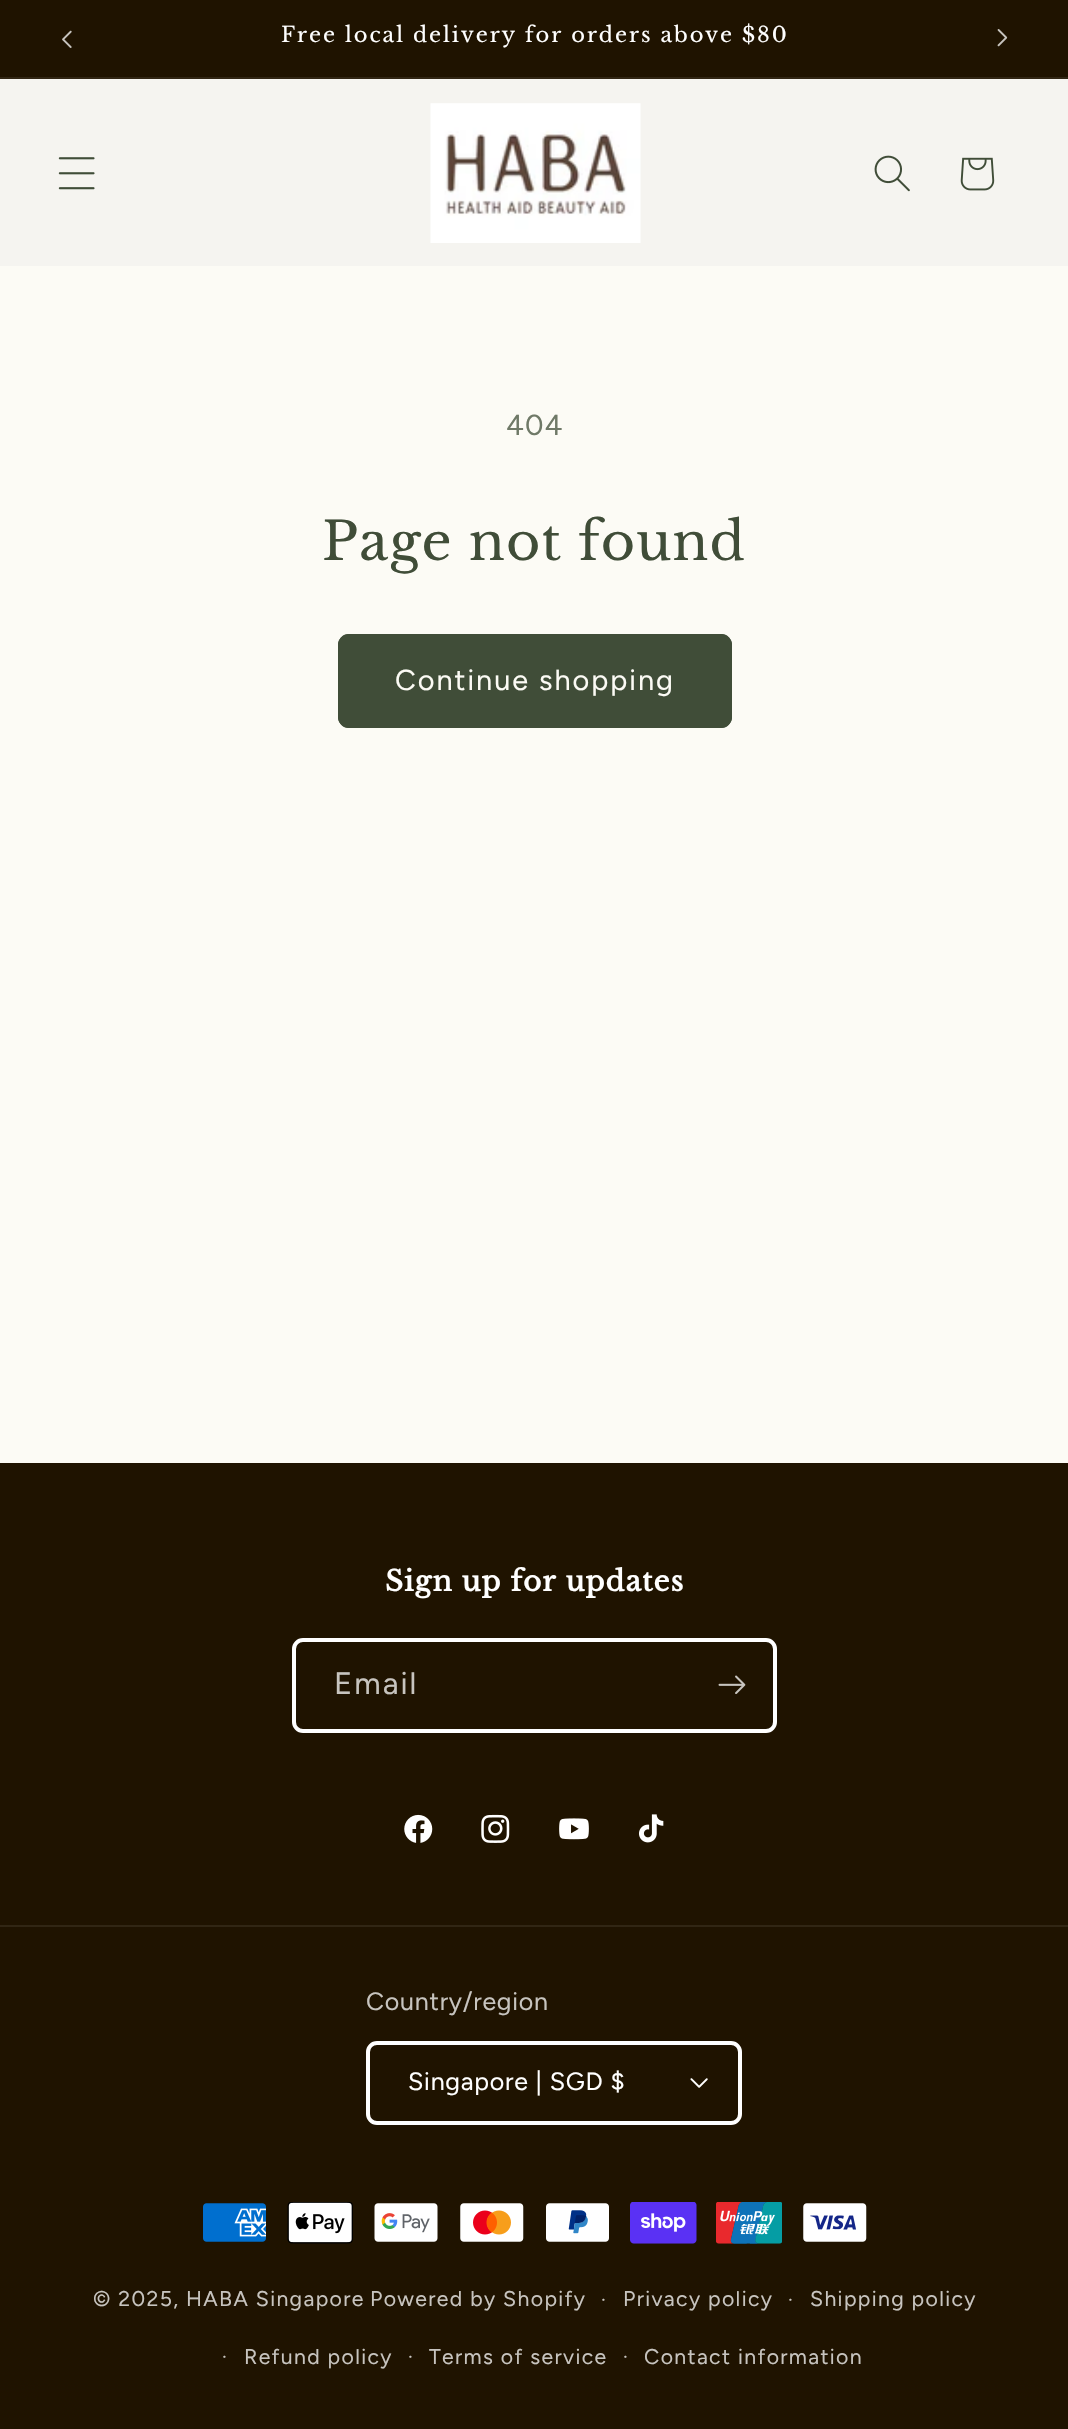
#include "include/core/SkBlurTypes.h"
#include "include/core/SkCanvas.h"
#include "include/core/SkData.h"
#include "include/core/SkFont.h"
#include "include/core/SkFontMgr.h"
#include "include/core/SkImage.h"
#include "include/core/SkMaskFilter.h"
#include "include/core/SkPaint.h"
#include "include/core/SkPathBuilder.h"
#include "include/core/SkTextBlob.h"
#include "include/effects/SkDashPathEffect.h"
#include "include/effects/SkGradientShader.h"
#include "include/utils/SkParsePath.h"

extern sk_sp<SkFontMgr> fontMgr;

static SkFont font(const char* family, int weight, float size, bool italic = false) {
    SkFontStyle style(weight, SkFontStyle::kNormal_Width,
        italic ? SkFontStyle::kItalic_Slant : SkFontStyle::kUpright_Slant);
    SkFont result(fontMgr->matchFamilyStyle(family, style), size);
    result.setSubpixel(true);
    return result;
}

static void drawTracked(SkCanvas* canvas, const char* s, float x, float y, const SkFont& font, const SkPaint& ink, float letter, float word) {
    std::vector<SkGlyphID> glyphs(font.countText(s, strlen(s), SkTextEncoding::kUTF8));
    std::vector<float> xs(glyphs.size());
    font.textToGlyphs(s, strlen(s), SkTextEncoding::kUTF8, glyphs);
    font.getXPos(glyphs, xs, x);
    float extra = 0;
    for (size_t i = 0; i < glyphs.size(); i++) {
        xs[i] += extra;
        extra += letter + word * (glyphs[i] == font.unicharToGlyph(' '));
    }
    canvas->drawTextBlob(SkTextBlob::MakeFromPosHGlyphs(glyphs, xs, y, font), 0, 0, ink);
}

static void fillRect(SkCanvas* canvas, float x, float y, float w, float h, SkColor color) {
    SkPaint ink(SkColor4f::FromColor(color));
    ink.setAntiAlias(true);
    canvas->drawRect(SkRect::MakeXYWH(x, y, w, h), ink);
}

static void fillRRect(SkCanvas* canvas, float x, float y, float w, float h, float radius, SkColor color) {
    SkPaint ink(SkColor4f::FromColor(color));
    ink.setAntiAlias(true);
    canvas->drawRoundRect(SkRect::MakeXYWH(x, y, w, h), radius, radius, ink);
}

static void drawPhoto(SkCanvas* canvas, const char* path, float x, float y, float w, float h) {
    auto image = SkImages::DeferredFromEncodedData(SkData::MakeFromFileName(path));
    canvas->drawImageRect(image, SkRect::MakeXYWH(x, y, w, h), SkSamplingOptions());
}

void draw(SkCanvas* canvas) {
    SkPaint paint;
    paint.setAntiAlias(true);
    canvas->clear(0xFFFCFBF5);
    fillRect(canvas, 0, 0, 1068, 77, 0xFF1F1300);
    fillRect(canvas, 0, 77, 1068, 2, 0xFF312614);
    drawPhoto(canvas, "assets/img1.png", 62, 30, 10, 18);
    SkFont font1 = font("Libre Baskerville", 400, 21);
    paint.setColor(0xFFFFFFFF);
    drawTracked(canvas, "Free local delivery for orders above $80", 281, 42, font1, paint, 1.95f, 0);
    drawPhoto(canvas, "assets/img2.png", 997, 29, 11, 18);
    fillRect(canvas, 0, 79, 1068, 187, 0xFFF5F4F0);
    drawPhoto(canvas, "assets/img3.png", 58, 157, 37, 33);
    drawPhoto(canvas, "assets/img4.png", 430, 103, 211, 140);
    drawPhoto(canvas, "assets/img5.png", 874, 155, 36, 37);
    drawPhoto(canvas, "assets/img6.png", 960, 157, 35, 34);
    SkFont font2 = font("Figtree", 400, 28.9f);
    paint.setColor(0xFF6F7967);
    drawTracked(canvas, "404", 506, 435, font2, paint, 1, 0);
    SkFont font3 = font("Libre Baskerville", 400, 52.5f);
    paint.setColor(0xFF404D38);
    drawTracked(canvas, "Page not found", 322, 560, font3, paint, 1, 0);
    fillRRect(canvas, 338, 634, 394, 94, 11, 0xFF404D38);
    paint.setStroke(true);
    paint.setStrokeWidth(4);
    canvas->drawRoundRect(SkRect::MakeXYWH(340, 636, 390, 90), 9, 9, paint);
    paint.setStroke(false);
    paint.setColor(0xFFFCFBF5);
    drawTracked(canvas, "Continue shopping", 395, 690, font2, paint, 1.95f, 0);
    fillRect(canvas, 0, 1463, 1068, 966, 0xFF1F1300);
    SkFont font4 = font("Libre Baskerville", 700, 28);
    paint.setColor(0xFFFFFFFF);
    drawTracked(canvas, "Sign up for updates", 385, 1591, font4, paint, 1, 0);
    paint.setStroke(true);
    canvas->drawRoundRect(SkRect::MakeXYWH(294, 1640, 481, 91), 9, 9, paint);
    SkFont font5 = font("Figtree", 400, 31);
    paint.setStroke(false);
    paint.setColor(0xFFC7C4BF);
    drawTracked(canvas, "Email", 334, 1694, font5, paint, 1.95f, 0);
    drawPhoto(canvas, "assets/img7.png", 718, 1675, 28, 19);
    drawPhoto(canvas, "assets/img8.png", 404, 1814, 29, 29);
    drawPhoto(canvas, "assets/img9.png", 481, 1814, 29, 29);
    drawPhoto(canvas, "assets/img10.png", 559, 1818, 30, 22);
    drawPhoto(canvas, "assets/img11.png", 639, 1814, 25, 29);
    fillRect(canvas, 0, 1925, 1068, 2, 0xFF312614);
    SkFont font6 = font("Figtree", 400, 25);
    drawTracked(canvas, "Country/region", 366, 2010, font6, paint, 0.75f, 0);
    drawPhoto(canvas, "assets/img12.png", 690, 2078, 18, 10);
    paint.setStroke(true);
    paint.setColor(0xFFFFFFFF);
    canvas->drawRoundRect(SkRect::MakeXYWH(368, 2043, 372, 80), 9, 9, paint);
    paint.setStroke(false);
    drawTracked(canvas, "Singapore | SGD $", 408, 2090, font6, paint, 0.75f, 0);
    drawPhoto(canvas, "assets/img13.png", 203, 2203, 63, 39);
    drawPhoto(canvas, "assets/img14.png", 287, 2202, 66, 42);
    drawPhoto(canvas, "assets/img15.png", 374, 2203, 64, 39);
    drawPhoto(canvas, "assets/img16.png", 460, 2203, 64, 39);
    drawPhoto(canvas, "assets/img17.png", 546, 2203, 63, 39);
    drawPhoto(canvas, "assets/img18.png", 630, 2202, 67, 42);
    drawPhoto(canvas, "assets/img19.png", 716, 2202, 66, 42);
    drawPhoto(canvas, "assets/img20.png", 803, 2203, 64, 39);
    SkFont font7 = font("Figtree", 400, 21.25f);
    paint.setColor(0xFFC7C4BF);
    drawTracked(canvas, "© 2025, HABA Singapore", 93, 2306, font7, paint, 1.35f, 0);
    SkFont font8 = font("Figtree", 400, 19);
    drawTracked(canvas, "·", 601, 2306, font8, paint, 1.35f, 0);
    drawTracked(canvas, "Privacy policy", 623, 2306, font7, paint, 1.35f, 0);
    drawTracked(canvas, "·", 788, 2306, font8, paint, 1.35f, 0);
    drawTracked(canvas, "Shipping policy", 810, 2306, font7, paint, 1.35f, 0);
    drawTracked(canvas, "·", 222, 2363, font8, paint, 1.35f, 0);
    drawTracked(canvas, "Refund policy", 244, 2364, font7, paint, 1.35f, 0);
    drawTracked(canvas, "·", 408, 2363, font8, paint, 1.35f, 0);
    drawTracked(canvas, "Terms of service", 429, 2364, font7, paint, 1.35f, 0);
    drawTracked(canvas, "·", 623, 2363, font8, paint, 1.35f, 0);
    drawTracked(canvas, "Contact information", 644, 2364, font7, paint, 1.35f, 0);
    drawTracked(canvas, "Powered by Shopify", 370, 2306, font7, paint, 1.35f, 0);
}
